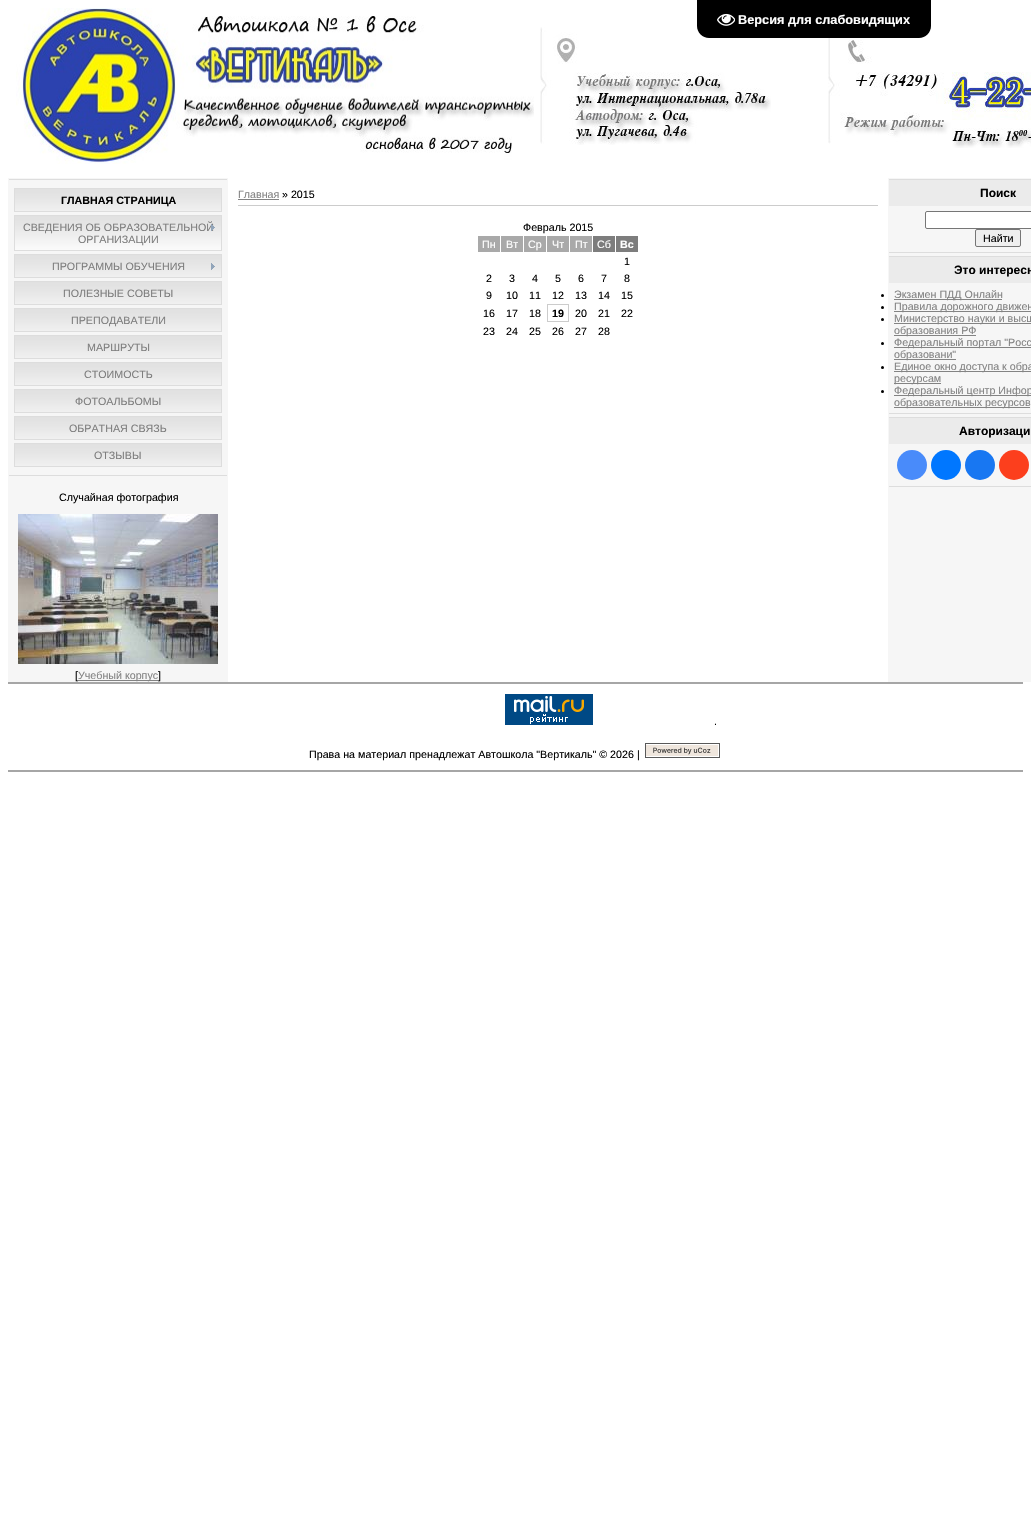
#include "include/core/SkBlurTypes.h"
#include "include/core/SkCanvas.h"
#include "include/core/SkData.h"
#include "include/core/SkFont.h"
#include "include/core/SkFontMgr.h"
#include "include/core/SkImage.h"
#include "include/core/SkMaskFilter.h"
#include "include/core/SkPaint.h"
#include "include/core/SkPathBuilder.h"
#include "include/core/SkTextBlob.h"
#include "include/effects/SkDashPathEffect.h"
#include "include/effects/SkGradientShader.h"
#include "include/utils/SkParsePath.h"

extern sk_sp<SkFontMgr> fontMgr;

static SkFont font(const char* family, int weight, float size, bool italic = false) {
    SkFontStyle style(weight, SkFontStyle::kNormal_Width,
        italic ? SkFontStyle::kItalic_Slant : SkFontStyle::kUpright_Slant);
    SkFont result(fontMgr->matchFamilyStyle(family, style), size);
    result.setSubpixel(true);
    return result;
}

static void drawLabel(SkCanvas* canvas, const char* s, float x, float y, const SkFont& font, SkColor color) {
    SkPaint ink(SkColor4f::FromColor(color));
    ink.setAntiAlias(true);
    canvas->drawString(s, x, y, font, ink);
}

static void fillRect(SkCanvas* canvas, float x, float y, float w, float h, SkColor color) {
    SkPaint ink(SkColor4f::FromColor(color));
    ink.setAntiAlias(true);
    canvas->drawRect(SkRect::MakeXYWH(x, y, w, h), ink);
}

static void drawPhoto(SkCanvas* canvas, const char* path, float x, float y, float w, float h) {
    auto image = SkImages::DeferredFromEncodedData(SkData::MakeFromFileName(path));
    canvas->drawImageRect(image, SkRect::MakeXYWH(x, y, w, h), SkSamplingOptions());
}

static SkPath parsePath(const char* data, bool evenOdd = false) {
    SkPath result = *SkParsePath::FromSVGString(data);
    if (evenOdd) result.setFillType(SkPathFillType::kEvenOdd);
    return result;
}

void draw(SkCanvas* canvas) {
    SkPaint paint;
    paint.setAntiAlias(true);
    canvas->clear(0xFFFFFFFF);
    drawPhoto(canvas, "assets/img1.png", 16, 8, 518, 156);
    drawPhoto(canvas, "assets/img2.png", 540, 27, 231, 118);
    drawPhoto(canvas, "assets/img3.png", 828, 27, 203, 121);
    paint.setColor(0xFF000000);
    canvas->drawPath(parsePath("M697 0H931V26C931 32.5 925.5 38 919 38H709C702.5 38 697 32.5 697 26Z"), paint);
    drawPhoto(canvas, "assets/img4.png", 717, 13, 18, 13);
    SkFont font1 = font("Liberation Sans", 700, 12.75f);
    drawLabel(canvas, "Версия для слабовидящих", 738, 24, font1, 0xFFFFFFFF);
    fillRect(canvas, 8, 178, 220, 504, 0xFFF6F6F6);
    fillRect(canvas, 9, 179, 218, 1, 0xFFDDDDDD);
    fillRect(canvas, 9, 475, 218, 1, 0xFFDDDDDD);
    drawPhoto(canvas, "assets/img5.png", 15, 189, 206, 22);
    paint.setStroke(true);
    paint.setStrokeWidth(1);
    paint.setColor(0xFFDDDDDD);
    canvas->drawRect(SkRect::MakeXYWH(14.5f, 188.5f, 207, 23), paint);
    SkFont font2 = font("Liberation Sans", 700, 10.7f);
    drawLabel(canvas, "ГЛАВНАЯ СТРАНИЦА", 61, 204, font2, 0xFF000000);
    drawPhoto(canvas, "assets/img6.png", 15, 216, 206, 34);
    canvas->drawRect(SkRect::MakeXYWH(14.5f, 215.5f, 207, 35), paint);
    SkFont font3 = font("Liberation Sans", 400, 10.7f);
    drawLabel(canvas, "СВЕДЕНИЯ ОБ ОБРАЗОВАТЕЛЬНОЙ", 23, 231, font3, 0xFF7D7D7D);
    drawPhoto(canvas, "assets/img7.png", 211, 224, 4, 7);
    drawLabel(canvas, "ОРГАНИЗАЦИИ", 78, 243, font3, 0xFF7D7D7D);
    drawPhoto(canvas, "assets/img5.png", 15, 255, 206, 22);
    canvas->drawRect(SkRect::MakeXYWH(14.5f, 254.5f, 207, 23), paint);
    drawLabel(canvas, "ПРОГРАММЫ ОБУЧЕНИЯ", 52, 270, font3, 0xFF7D7D7D);
    drawPhoto(canvas, "assets/img8.png", 211, 263, 4, 7);
    drawPhoto(canvas, "assets/img5.png", 15, 282, 206, 22);
    canvas->drawRect(SkRect::MakeXYWH(14.5f, 281.5f, 207, 23), paint);
    drawLabel(canvas, "ПОЛЕЗНЫЕ СОВЕТЫ", 63, 297, font3, 0xFF7D7D7D);
    drawPhoto(canvas, "assets/img5.png", 15, 309, 206, 22);
    canvas->drawRect(SkRect::MakeXYWH(14.5f, 308.5f, 207, 23), paint);
    drawLabel(canvas, "ПРЕПОДАВАТЕЛИ", 71, 324, font3, 0xFF7D7D7D);
    drawPhoto(canvas, "assets/img5.png", 15, 336, 206, 22);
    canvas->drawRect(SkRect::MakeXYWH(14.5f, 335.5f, 207, 23), paint);
    drawLabel(canvas, "МАРШРУТЫ", 87, 351, font3, 0xFF7D7D7D);
    drawPhoto(canvas, "assets/img5.png", 15, 363, 206, 22);
    canvas->drawRect(SkRect::MakeXYWH(14.5f, 362.5f, 207, 23), paint);
    drawLabel(canvas, "СТОИМОСТЬ", 84, 378, font3, 0xFF7D7D7D);
    drawPhoto(canvas, "assets/img5.png", 15, 390, 206, 22);
    canvas->drawRect(SkRect::MakeXYWH(14.5f, 389.5f, 207, 23), paint);
    drawLabel(canvas, "ФОТОАЛЬБОМЫ", 75, 405, font3, 0xFF7D7D7D);
    drawPhoto(canvas, "assets/img5.png", 15, 417, 206, 22);
    canvas->drawRect(SkRect::MakeXYWH(14.5f, 416.5f, 207, 23), paint);
    drawLabel(canvas, "ОБРАТНАЯ СВЯЗЬ", 69, 432, font3, 0xFF7D7D7D);
    drawPhoto(canvas, "assets/img5.png", 15, 444, 206, 22);
    canvas->drawRect(SkRect::MakeXYWH(14.5f, 443.5f, 207, 23), paint);
    drawLabel(canvas, "ОТЗЫВЫ", 94, 459, font3, 0xFF7D7D7D);
    drawLabel(canvas, "Случайная фотография", 59, 501, font3, 0xFF000000);
    drawPhoto(canvas, "assets/img9.png", 18, 514, 200, 150);
    drawLabel(canvas, "[", 75, 679, font3, 0xFF000000);
    fillRect(canvas, 78, 680, 80, 1, 0xFF838383);
    drawLabel(canvas, "Учебный корпус", 78, 679, font3, 0xFF838383);
    drawLabel(canvas, "]", 158, 679, font3, 0xFF000000);
    drawLabel(canvas, "Главная", 238, 198, font3, 0xFF838383);
    fillRect(canvas, 238, 199, 41, 1, 0xFF838383);
    drawLabel(canvas, "» 2015", 282, 198, font3, 0xFF000000);
    fillRect(canvas, 238, 205, 640, 1, 0xFFCCCCCC);
    drawLabel(canvas, "Февраль 2015", 523, 231, font3, 0xFF000000);
    fillRect(canvas, 478, 236, 22, 16, 0xFFA9A9A9);
    drawLabel(canvas, "Пн", 482, 248, font3, 0xFFFFFFFF);
    fillRect(canvas, 501, 236, 22, 16, 0xFFA9A9A9);
    drawLabel(canvas, "Вт", 506, 248, font3, 0xFFFFFFFF);
    fillRect(canvas, 524, 236, 22, 16, 0xFFA9A9A9);
    drawLabel(canvas, "Ср", 528, 248, font3, 0xFFFFFFFF);
    fillRect(canvas, 547, 236, 22, 16, 0xFFA9A9A9);
    drawLabel(canvas, "Чт", 552, 248, font3, 0xFFFFFFFF);
    fillRect(canvas, 570, 236, 22, 16, 0xFFA9A9A9);
    drawLabel(canvas, "Пт", 575, 248, font3, 0xFFFFFFFF);
    fillRect(canvas, 593, 236, 22, 16, 0xFF7D7D7D);
    drawLabel(canvas, "Сб", 597, 248, font3, 0xFFFFFFFF);
    fillRect(canvas, 616, 236, 22, 16, 0xFF7D7D7D);
    drawLabel(canvas, "Вс", 620, 248, font2, 0xFFFFFFFF);
    drawLabel(canvas, "1", 624, 265, font3, 0xFF000000);
    drawLabel(canvas, "2", 486, 282, font3, 0xFF000000);
    drawLabel(canvas, "3", 509, 282, font3, 0xFF000000);
    drawLabel(canvas, "4", 532, 282, font3, 0xFF000000);
    drawLabel(canvas, "5", 555, 282, font3, 0xFF000000);
    drawLabel(canvas, "6", 578, 282, font3, 0xFF000000);
    drawLabel(canvas, "7", 601, 282, font3, 0xFF000000);
    drawLabel(canvas, "8", 624, 282, font3, 0xFF000000);
    drawLabel(canvas, "9", 486, 299, font3, 0xFF000000);
    drawLabel(canvas, "10", 506, 299, font3, 0xFF000000);
    drawLabel(canvas, "11", 529, 299, font3, 0xFF000000);
    drawLabel(canvas, "12", 552, 299, font3, 0xFF000000);
    drawLabel(canvas, "13", 575, 299, font3, 0xFF000000);
    drawLabel(canvas, "14", 598, 299, font3, 0xFF000000);
    drawLabel(canvas, "15", 621, 299, font3, 0xFF000000);
    drawLabel(canvas, "16", 483, 317, font3, 0xFF000000);
    drawLabel(canvas, "17", 506, 317, font3, 0xFF000000);
    drawLabel(canvas, "18", 529, 317, font3, 0xFF000000);
    paint.setColor(0xFFCCCCCC);
    canvas->drawRect(SkRect::MakeXYWH(547.5f, 304.5f, 21, 17), paint);
    drawLabel(canvas, "19", 552, 317, font2, 0xFF000000);
    drawLabel(canvas, "20", 575, 317, font3, 0xFF000000);
    drawLabel(canvas, "21", 598, 317, font3, 0xFF000000);
    drawLabel(canvas, "22", 621, 317, font3, 0xFF000000);
    drawLabel(canvas, "23", 483, 335, font3, 0xFF000000);
    drawLabel(canvas, "24", 506, 335, font3, 0xFF000000);
    drawLabel(canvas, "25", 529, 335, font3, 0xFF000000);
    drawLabel(canvas, "26", 552, 335, font3, 0xFF000000);
    drawLabel(canvas, "27", 575, 335, font3, 0xFF000000);
    drawLabel(canvas, "28", 598, 335, font3, 0xFF000000);
    fillRect(canvas, 888, 178, 143, 504, 0xFFF6F6F6);
    fillRect(canvas, 889, 179, 142, 1, 0xFFDDDDDD);
    fillRect(canvas, 889, 252, 142, 1, 0xFFDDDDDD);
    fillRect(canvas, 889, 180, 142, 26, 0xFFEBEBEB);
    SkFont font4 = font("Liberation Sans", 700, 12);
    drawLabel(canvas, "Поиск", 980, 197, font4, 0xFF000000);
    paint.setStroke(false);
    paint.setColor(0xFFFFFFFF);
    canvas->drawRoundRect(SkRect::MakeXYWH(925.5f, 211.5f, 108, 17), 1.5f, 1.5f, paint);
    paint.setStroke(true);
    paint.setColor(0xFF767676);
    canvas->drawRoundRect(SkRect::MakeXYWH(925.5f, 211.5f, 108, 17), 1.5f, 1.5f, paint);
    paint.setStroke(false);
    paint.setColor(0xFFEFEFEF);
    canvas->drawRoundRect(SkRect::MakeXYWH(975.5f, 229.5f, 45, 17), 1.5f, 1.5f, paint);
    paint.setStroke(true);
    paint.setColor(0xFF767676);
    canvas->drawRoundRect(SkRect::MakeXYWH(975.5f, 229.5f, 45, 17), 1.5f, 1.5f, paint);
    drawLabel(canvas, "Найти", 983, 242, font3, 0xFF000000);
    fillRect(canvas, 889, 256, 142, 1, 0xFFDDDDDD);
    fillRect(canvas, 889, 413, 142, 1, 0xFFDDDDDD);
    fillRect(canvas, 889, 257, 142, 26, 0xFFEBEBEB);
    drawLabel(canvas, "Это интересн", 954, 274, font4, 0xFF000000);
    paint.setStroke(false);
    paint.setColor(0xFF000000);
    canvas->drawCircle(882.5f, 295.5f, 1.5f, paint);
    fillRect(canvas, 894, 299, 108, 1, 0xFF838383);
    drawLabel(canvas, "Экзамен ПДД Онлайн", 894, 298, font3, 0xFF838383);
    canvas->drawCircle(882.5f, 307.5f, 1.5f, paint);
    fillRect(canvas, 894, 311, 137, 1, 0xFF838383);
    drawLabel(canvas, "Правила дорожного движен", 894, 310, font3, 0xFF838383);
    canvas->drawCircle(882.5f, 319.5f, 1.5f, paint);
    fillRect(canvas, 894, 323, 137, 1, 0xFF838383);
    drawLabel(canvas, "Министерство науки и высш", 894, 322, font3, 0xFF838383);
    fillRect(canvas, 894, 335, 82, 1, 0xFF838383);
    drawLabel(canvas, "образования РФ", 894, 334, font3, 0xFF838383);
    canvas->drawCircle(882.5f, 343.5f, 1.5f, paint);
    fillRect(canvas, 894, 347, 137, 1, 0xFF838383);
    drawLabel(canvas, "Федеральный портал \"Росс", 894, 346, font3, 0xFF838383);
    fillRect(canvas, 894, 359, 62, 1, 0xFF838383);
    drawLabel(canvas, "образовани\"", 894, 358, font3, 0xFF838383);
    canvas->drawCircle(882.5f, 367.5f, 1.5f, paint);
    fillRect(canvas, 894, 371, 137, 1, 0xFF838383);
    drawLabel(canvas, "Единое окно доступа к обра", 894, 370, font3, 0xFF838383);
    fillRect(canvas, 894, 383, 47, 1, 0xFF838383);
    drawLabel(canvas, "ресурсам", 894, 382, font3, 0xFF838383);
    canvas->drawCircle(882.5f, 391.5f, 1.5f, paint);
    fillRect(canvas, 894, 395, 137, 1, 0xFF838383);
    drawLabel(canvas, "Федеральный центр Инфор", 894, 394, font3, 0xFF838383);
    fillRect(canvas, 894, 407, 136, 1, 0xFF838383);
    drawLabel(canvas, "образовательных ресурсов", 894, 406, font3, 0xFF838383);
    fillRect(canvas, 889, 417, 142, 1, 0xFFDDDDDD);
    fillRect(canvas, 889, 486, 142, 1, 0xFFDDDDDD);
    fillRect(canvas, 889, 418, 142, 26, 0xFFEBEBEB);
    drawLabel(canvas, "Авторизаци", 959, 435, font4, 0xFF000000);
    paint.setColor(0xFF498BFA);
    canvas->drawCircle(912, 465, 15, paint);
    paint.setColor(0xFF0077FF);
    canvas->drawCircle(946, 465, 15, paint);
    paint.setColor(0xFF1877F2);
    canvas->drawCircle(980, 465, 15, paint);
    paint.setColor(0xFFFC3F1D);
    canvas->drawCircle(1014, 465, 15, paint);
    fillRect(canvas, 8, 682, 1015, 2, 0xFFA6A6A6);
    fillRect(canvas, 8, 770, 1015, 2, 0xFFA6A6A6);
    drawPhoto(canvas, "assets/img10.png", 505, 694, 88, 31);
    drawLabel(canvas, ".", 714, 725, font3, 0xFF000000);
    drawLabel(canvas, "Права на материал пренадлежат Автошкола \"Вертикаль\" © 2026 |", 309, 758, font3, 0xFF000000);
    drawPhoto(canvas, "assets/img11.png", 645, 743, 75, 15);
}
